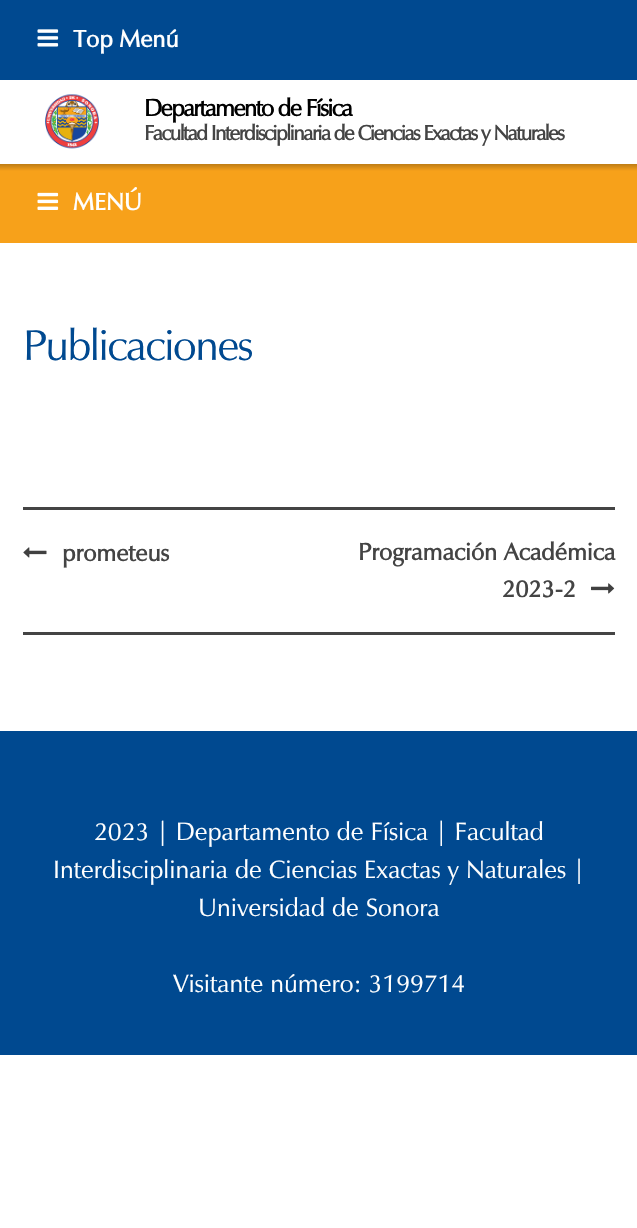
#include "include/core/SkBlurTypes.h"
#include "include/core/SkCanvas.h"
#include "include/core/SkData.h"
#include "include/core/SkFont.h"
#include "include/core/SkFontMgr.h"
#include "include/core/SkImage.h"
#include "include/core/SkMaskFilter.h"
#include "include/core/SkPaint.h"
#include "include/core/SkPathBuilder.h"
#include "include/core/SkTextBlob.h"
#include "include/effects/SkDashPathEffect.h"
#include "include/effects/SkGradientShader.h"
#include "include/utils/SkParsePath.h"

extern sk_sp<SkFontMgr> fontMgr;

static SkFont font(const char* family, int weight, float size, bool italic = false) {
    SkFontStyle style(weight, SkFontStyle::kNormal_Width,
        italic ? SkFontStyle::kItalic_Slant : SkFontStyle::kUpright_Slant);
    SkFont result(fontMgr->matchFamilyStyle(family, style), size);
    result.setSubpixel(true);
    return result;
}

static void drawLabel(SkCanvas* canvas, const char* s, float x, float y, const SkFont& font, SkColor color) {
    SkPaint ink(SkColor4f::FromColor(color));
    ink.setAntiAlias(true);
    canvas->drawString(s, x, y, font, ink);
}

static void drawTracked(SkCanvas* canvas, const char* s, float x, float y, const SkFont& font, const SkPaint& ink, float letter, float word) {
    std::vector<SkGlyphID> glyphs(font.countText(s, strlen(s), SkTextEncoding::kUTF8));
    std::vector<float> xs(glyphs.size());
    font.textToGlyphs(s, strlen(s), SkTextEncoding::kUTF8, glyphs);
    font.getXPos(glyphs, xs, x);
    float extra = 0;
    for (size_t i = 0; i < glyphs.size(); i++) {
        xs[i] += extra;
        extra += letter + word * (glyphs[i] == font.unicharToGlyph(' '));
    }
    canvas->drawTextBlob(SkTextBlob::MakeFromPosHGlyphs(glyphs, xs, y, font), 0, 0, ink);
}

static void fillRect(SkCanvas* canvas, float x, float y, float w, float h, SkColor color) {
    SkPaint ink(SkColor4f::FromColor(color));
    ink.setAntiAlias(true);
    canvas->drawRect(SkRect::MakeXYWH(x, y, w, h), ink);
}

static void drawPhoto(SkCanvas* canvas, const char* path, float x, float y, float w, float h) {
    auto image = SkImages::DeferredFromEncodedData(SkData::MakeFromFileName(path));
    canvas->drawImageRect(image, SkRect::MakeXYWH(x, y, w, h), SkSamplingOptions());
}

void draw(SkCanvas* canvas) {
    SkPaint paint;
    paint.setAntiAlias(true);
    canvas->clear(0xFFFFFFFF);
    fillRect(canvas, 0, 0, 637, 80, 0xFF004990);
    drawPhoto(canvas, "assets/img1.png", 37, 29, 22, 18);
    SkFont font1 = font("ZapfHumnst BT", 700, 24);
    drawLabel(canvas, "Top Menú", 73, 47, font1, 0xFFFFFFFF);
    drawPhoto(canvas, "assets/img2.png", 45, 94, 54, 55);
    paint.setColor(0xFF000000);
    drawTracked(canvas, "Departamento de Física", 144, 116, font1, paint, -1.5f, 0);
    SkFont font2 = font("ZapfHumnst BT", 700, 21);
    paint.setColor(0xFF444444);
    drawTracked(canvas, "Facultad Interdisciplinaria de Ciencias Exactas y Naturales", 144, 140, font2, paint, -1.5f, 0);
    {
        const SkColor colors[] = {0xFFB57714, 0xFFBC7B15, 0xFFF7A11A};
        const float stops[] = {0, 0.01f, 0.1f};
        const SkPoint ends[] = {{319, 163}, {319, 243}};
        paint.setShader(SkGradientShader::MakeLinear(ends, colors, stops, 3, SkTileMode::kClamp));
        paint.setAlpha(255);
    }
    canvas->drawRect(SkRect::MakeXYWH(0, 164, 637, 79), paint);
    drawPhoto(canvas, "assets/img3.png", 37, 192, 22, 18);
    drawLabel(canvas, "MENÚ", 73, 210, font1, 0xFFFFFFFF);
    SkFont font3 = font("ZapfHumnst BT", 400, 43.25f);
    paint.setShader(nullptr);
    paint.setColor(0xFF004990);
    drawTracked(canvas, "Publicaciones", 23, 360, font3, paint, -1.5f, 0);
    fillRect(canvas, 23, 507, 592, 3, 0xFF444444);
    fillRect(canvas, 23, 632, 592, 3, 0xFF444444);
    drawPhoto(canvas, "assets/img4.png", 23, 547, 24, 11);
    drawLabel(canvas, "prometeus", 62, 561, font1, 0xFF444444);
    drawLabel(canvas, "Programación Académica", 358, 560, font1, 0xFF444444);
    drawLabel(canvas, "2023-2", 502, 597, font1, 0xFF444444);
    drawPhoto(canvas, "assets/img5.png", 591, 583, 24, 11);
    fillRect(canvas, 0, 731, 637, 324, 0xFF004990);
    SkFont font4 = font("ZapfHumnst BT", 400, 25.2f);
    drawLabel(canvas, "2023 | Departamento de Física | Facultad", 94, 840, font4, 0xFFFFFFFF);
    drawLabel(canvas, "Interdisciplinaria de Ciencias Exactas y Naturales |", 53, 878, font4, 0xFFFFFFFF);
    drawLabel(canvas, "Universidad de Sonora", 198, 916, font4, 0xFFFFFFFF);
    drawLabel(canvas, "Visitante número: 3199714", 173, 992, font4, 0xFFFFFFFF);
}
